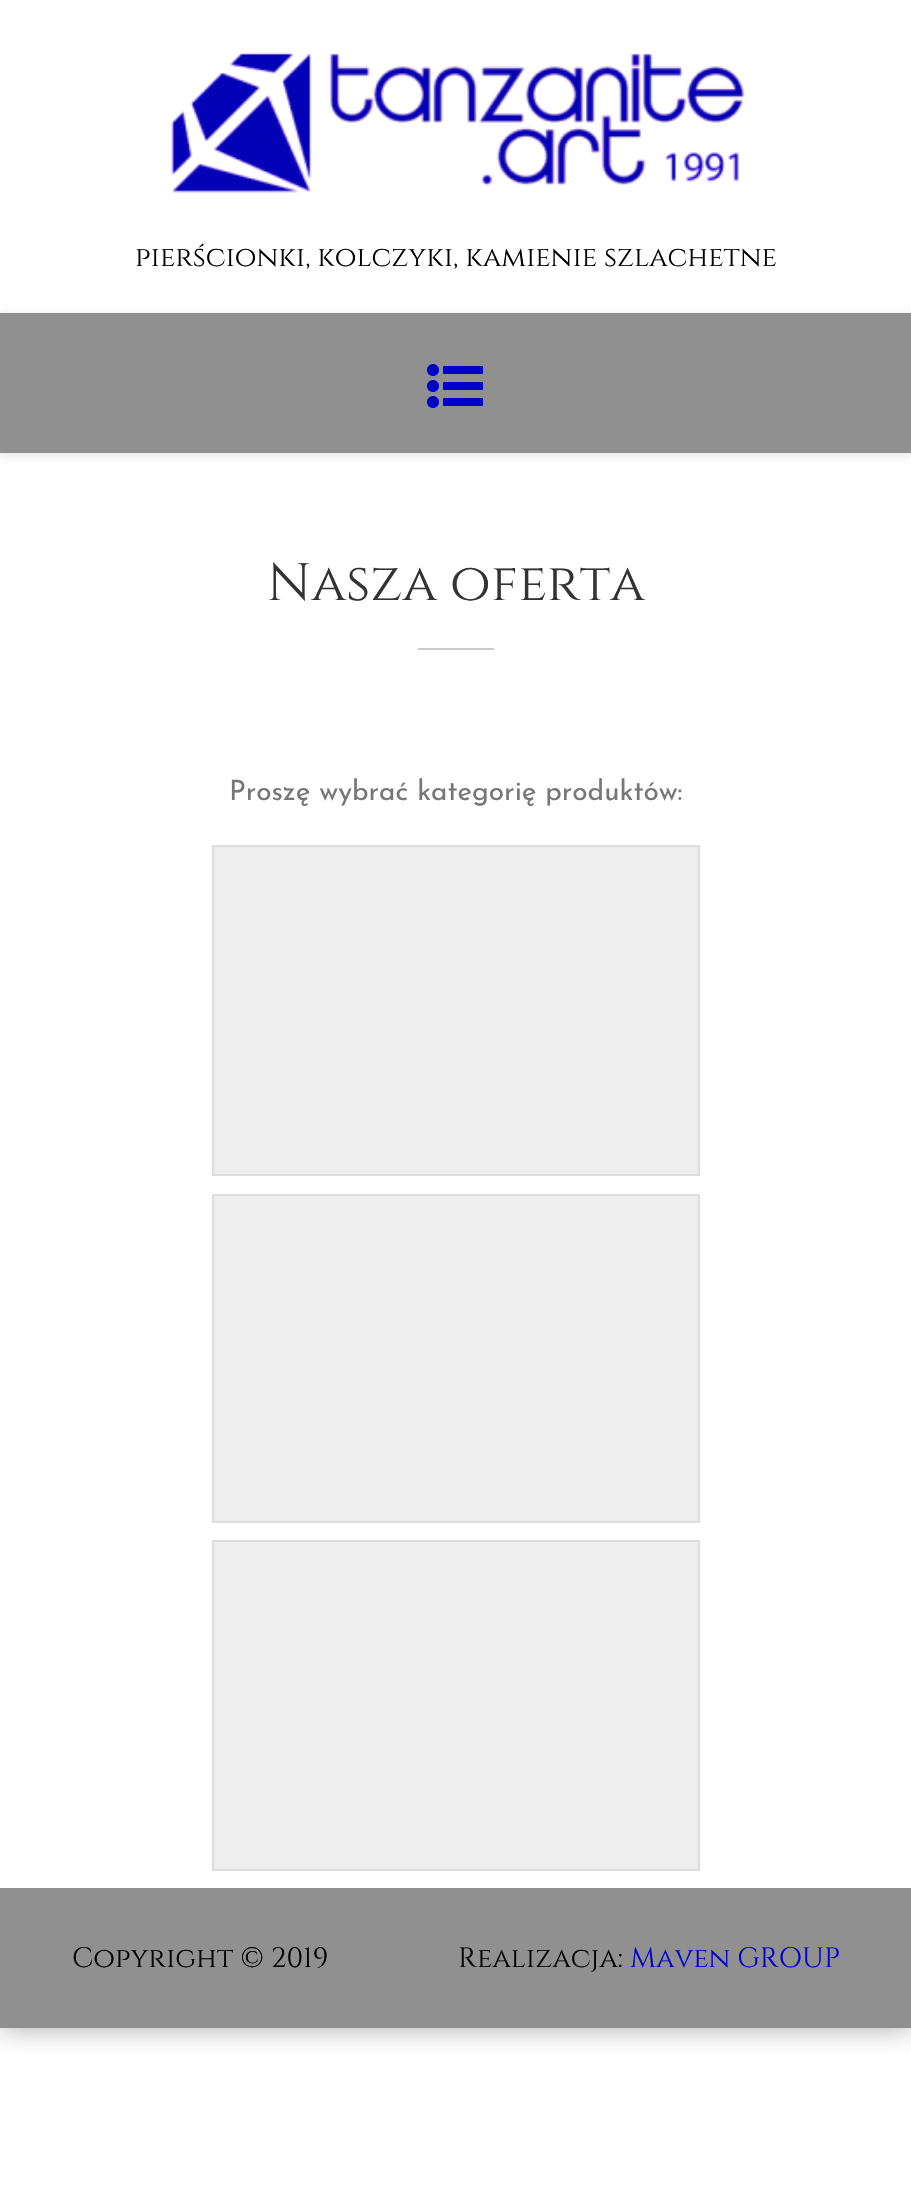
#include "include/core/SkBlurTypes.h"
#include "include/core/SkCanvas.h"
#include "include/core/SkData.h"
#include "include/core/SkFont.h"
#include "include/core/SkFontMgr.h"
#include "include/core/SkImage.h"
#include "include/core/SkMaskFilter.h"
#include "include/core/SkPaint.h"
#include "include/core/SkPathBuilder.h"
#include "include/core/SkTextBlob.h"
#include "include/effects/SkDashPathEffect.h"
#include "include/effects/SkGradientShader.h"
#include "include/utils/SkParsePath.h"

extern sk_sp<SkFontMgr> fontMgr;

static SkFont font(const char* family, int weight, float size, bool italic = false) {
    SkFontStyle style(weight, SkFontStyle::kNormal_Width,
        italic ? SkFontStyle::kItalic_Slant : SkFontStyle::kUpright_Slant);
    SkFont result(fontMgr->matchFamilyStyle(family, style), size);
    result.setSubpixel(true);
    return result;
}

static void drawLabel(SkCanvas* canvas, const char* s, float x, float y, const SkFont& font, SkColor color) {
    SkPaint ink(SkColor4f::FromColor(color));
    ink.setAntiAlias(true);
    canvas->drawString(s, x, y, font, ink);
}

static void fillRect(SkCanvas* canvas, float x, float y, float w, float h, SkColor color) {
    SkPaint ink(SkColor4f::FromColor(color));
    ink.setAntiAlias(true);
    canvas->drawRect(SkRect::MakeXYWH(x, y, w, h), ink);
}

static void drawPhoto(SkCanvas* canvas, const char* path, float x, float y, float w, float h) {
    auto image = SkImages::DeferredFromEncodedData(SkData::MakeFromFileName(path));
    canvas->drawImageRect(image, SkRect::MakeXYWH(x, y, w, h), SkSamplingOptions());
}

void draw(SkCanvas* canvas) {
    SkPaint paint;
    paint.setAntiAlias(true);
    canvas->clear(0xFFFFFFFF);
    canvas->save();
    canvas->clipRect(SkRect::MakeXYWH(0, 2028, 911, 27));
    paint.setColor(0xFFAAAAAA);
    paint.setMaskFilter(SkMaskFilter::MakeBlur(kNormal_SkBlurStyle, 13));
    canvas->drawRect(SkRect::MakeXYWH(0, 0, 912, 2028), paint);
    paint.setMaskFilter(nullptr);
    canvas->restore();
    drawPhoto(canvas, "assets/img1.png", 171, 52, 574, 141);
    SkFont font1 = font("Cinzel", 400, 28);
    drawLabel(canvas, "pierścionki, kolczyki, kamienie szlachetne", 135, 266, font1, 0xFF000000);
    paint.setColor(0x1C000000);
    paint.setMaskFilter(SkMaskFilter::MakeBlur(kNormal_SkBlurStyle, 4.5f));
    canvas->drawRect(SkRect::MakeXYWH(0, 315, 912, 140), paint);
    paint.setMaskFilter(nullptr);
    fillRect(canvas, 0, 313, 911, 140, 0xFF909090);
    drawPhoto(canvas, "assets/img2.png", 427, 364, 56, 44);
    SkFont font2 = font("Cinzel", 400, 52.5f);
    drawLabel(canvas, "Nasza oferta", 267, 600, font2, 0xFF333333);
    fillRect(canvas, 418, 648, 76, 2, 0xFFCCCCCC);
    SkFont font3 = font("Josefin Sans", 400, 28);
    drawLabel(canvas, "Proszę wybrać kategorię produktów:", 229, 800, font3, 0xFF777777);
    paint.setColor(0xFFEEEEEE);
    canvas->drawRect(SkRect::MakeXYWH(213, 846, 486, 329), paint);
    paint.setStroke(true);
    paint.setStrokeWidth(2);
    paint.setColor(0xFFDDDDDD);
    canvas->drawRect(SkRect::MakeXYWH(213, 846, 486, 329), paint);
    paint.setStroke(false);
    paint.setColor(0xFFEEEEEE);
    canvas->drawRect(SkRect::MakeXYWH(213, 1195, 486, 327), paint);
    paint.setStroke(true);
    paint.setColor(0xFFDDDDDD);
    canvas->drawRect(SkRect::MakeXYWH(213, 1195, 486, 327), paint);
    paint.setStroke(false);
    paint.setColor(0xFFEEEEEE);
    canvas->drawRect(SkRect::MakeXYWH(213, 1541, 486, 329), paint);
    paint.setStroke(true);
    paint.setColor(0xFFDDDDDD);
    canvas->drawRect(SkRect::MakeXYWH(213, 1541, 486, 329), paint);
    fillRect(canvas, 0, 1888, 911, 140, 0xFF909090);
    drawLabel(canvas, "Copyright © 2019", 72, 1967, font1, 0xFF000000);
    drawLabel(canvas, "Realizacja:", 458, 1967, font1, 0xFF000000);
    drawLabel(canvas, "Maven GROUP", 630, 1967, font1, 0xFF0000CD);
}
